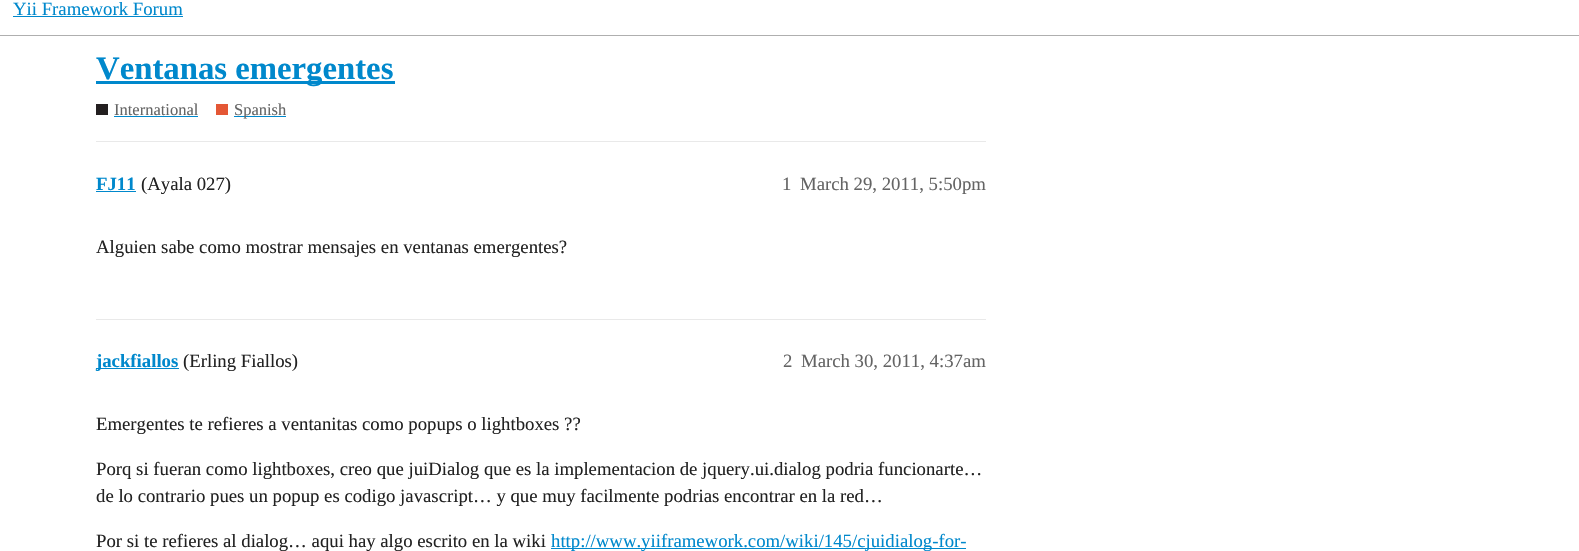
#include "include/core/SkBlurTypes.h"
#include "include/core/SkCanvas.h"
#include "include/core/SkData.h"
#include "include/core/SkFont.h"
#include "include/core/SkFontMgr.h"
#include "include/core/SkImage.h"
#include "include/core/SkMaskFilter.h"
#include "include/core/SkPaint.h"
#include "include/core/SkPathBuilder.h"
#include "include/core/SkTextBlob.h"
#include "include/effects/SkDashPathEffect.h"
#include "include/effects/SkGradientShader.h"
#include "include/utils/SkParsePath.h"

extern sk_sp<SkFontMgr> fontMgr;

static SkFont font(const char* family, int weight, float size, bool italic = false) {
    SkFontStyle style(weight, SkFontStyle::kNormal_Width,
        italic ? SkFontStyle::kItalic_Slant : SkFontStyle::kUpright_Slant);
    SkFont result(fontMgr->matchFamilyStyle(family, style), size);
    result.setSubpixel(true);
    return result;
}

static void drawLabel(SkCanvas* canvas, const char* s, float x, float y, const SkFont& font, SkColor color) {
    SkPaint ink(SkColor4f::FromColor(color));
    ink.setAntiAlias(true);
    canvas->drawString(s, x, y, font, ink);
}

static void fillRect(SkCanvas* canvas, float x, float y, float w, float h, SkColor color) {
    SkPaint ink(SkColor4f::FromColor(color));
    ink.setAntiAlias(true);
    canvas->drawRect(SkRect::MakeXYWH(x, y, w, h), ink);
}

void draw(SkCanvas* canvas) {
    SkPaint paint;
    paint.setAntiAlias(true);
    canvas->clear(0xFFFFFFFF);
    fillRect(canvas, 0, 35, 1579, 1, 0xFFAFAFAF);
    SkFont font1 = font("Liberation Serif", 400, 18.75f);
    drawLabel(canvas, "Yii Framework Forum", 13, 15, font1, 0xFF0088CC);
    fillRect(canvas, 13, 16, 170, 1, 0xFF0088CC);
    fillRect(canvas, 96, 81, 299, 3, 0xFF0088CC);
    SkFont font2 = font("Liberation Serif", 700, 32.75f);
    drawLabel(canvas, "Ventanas emergentes", 96, 79, font2, 0xFF0088CC);
    fillRect(canvas, 96, 104, 12, 11, 0xFF231F20);
    SkFont font3 = font("Liberation Serif", 400, 16.5f);
    drawLabel(canvas, "International", 114, 115, font3, 0xFF646464);
    fillRect(canvas, 114, 116, 84, 1, 0xFF0088CC);
    fillRect(canvas, 216, 104, 12, 11, 0xFFE45735);
    fillRect(canvas, 234, 116, 52, 1, 0xFF0088CC);
    drawLabel(canvas, "Spanish", 234, 115, font3, 0xFF646464);
    fillRect(canvas, 96, 141, 890, 1, 0xFFE9E9E9);
    SkFont font4 = font("Liberation Serif", 700, 18.75f);
    drawLabel(canvas, "FJ11", 96, 190, font4, 0xFF0088CC);
    fillRect(canvas, 96, 191, 40, 1, 0xFF0088CC);
    drawLabel(canvas, "(Ayala 027)", 141, 190, font1, 0xFF222222);
    drawLabel(canvas, "1", 782, 190, font1, 0xFF646464);
    drawLabel(canvas, "March 29, 2011, 5:50pm", 800, 190, font1, 0xFF646464);
    drawLabel(canvas, "Alguien sabe como mostrar mensajes en ventanas emergentes?", 96, 253, font1, 0xFF222222);
    fillRect(canvas, 96, 319, 890, 1, 0xFFE9E9E9);
    fillRect(canvas, 96, 368, 83, 1, 0xFF0088CC);
    drawLabel(canvas, "jackfiallos", 96, 367, font4, 0xFF0088CC);
    drawLabel(canvas, "(Erling Fiallos)", 183, 367, font1, 0xFF222222);
    drawLabel(canvas, "2", 783, 367, font1, 0xFF646464);
    drawLabel(canvas, "March 30, 2011, 4:37am", 801, 367, font1, 0xFF646464);
    drawLabel(canvas, "Emergentes te refieres a ventanitas como popups o lightboxes ?\077", 96, 430, font1, 0xFF222222);
    drawLabel(canvas, "Porq si fueran como lightboxes, creo que juiDialog que es la implementacion de jquery.ui.dialog podria funcionarte…", 96, 475, font1, 0xFF222222);
    drawLabel(canvas, "de lo contrario pues un popup es codigo javascript… y que muy facilmente podrias encontrar en la red…", 96, 502, font1, 0xFF222222);
    drawLabel(canvas, "Por si te refieres al dialog… aqui hay algo escrito en la wiki", 96, 547, font1, 0xFF222222);
    fillRect(canvas, 551, 548, 415, 1, 0xFF0088CC);
    drawLabel(canvas, "http://www.yiiframework.com/wiki/145/cjuidialog-for-", 551, 547, font1, 0xFF0088CC);
}
